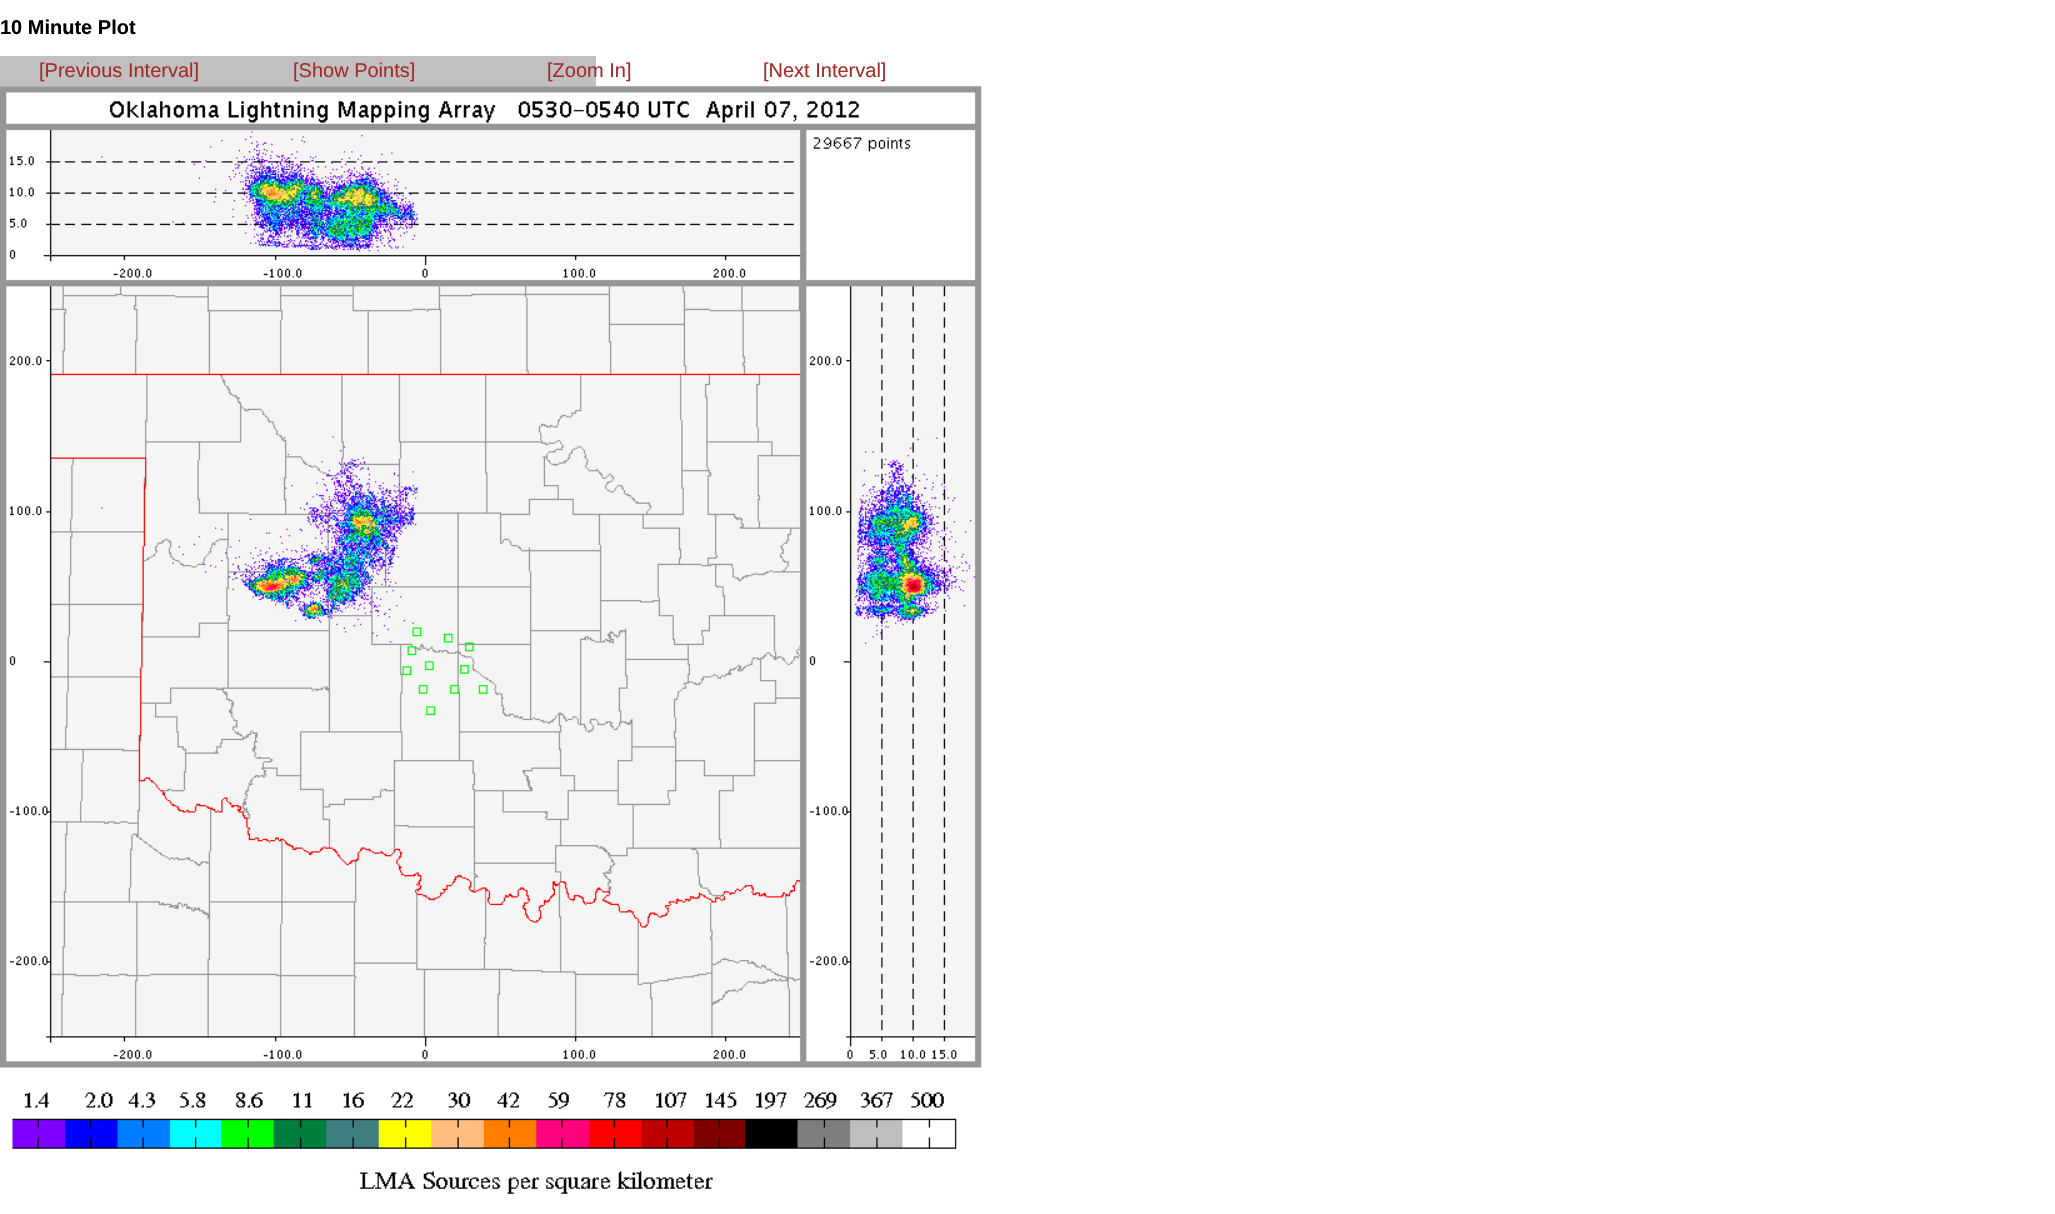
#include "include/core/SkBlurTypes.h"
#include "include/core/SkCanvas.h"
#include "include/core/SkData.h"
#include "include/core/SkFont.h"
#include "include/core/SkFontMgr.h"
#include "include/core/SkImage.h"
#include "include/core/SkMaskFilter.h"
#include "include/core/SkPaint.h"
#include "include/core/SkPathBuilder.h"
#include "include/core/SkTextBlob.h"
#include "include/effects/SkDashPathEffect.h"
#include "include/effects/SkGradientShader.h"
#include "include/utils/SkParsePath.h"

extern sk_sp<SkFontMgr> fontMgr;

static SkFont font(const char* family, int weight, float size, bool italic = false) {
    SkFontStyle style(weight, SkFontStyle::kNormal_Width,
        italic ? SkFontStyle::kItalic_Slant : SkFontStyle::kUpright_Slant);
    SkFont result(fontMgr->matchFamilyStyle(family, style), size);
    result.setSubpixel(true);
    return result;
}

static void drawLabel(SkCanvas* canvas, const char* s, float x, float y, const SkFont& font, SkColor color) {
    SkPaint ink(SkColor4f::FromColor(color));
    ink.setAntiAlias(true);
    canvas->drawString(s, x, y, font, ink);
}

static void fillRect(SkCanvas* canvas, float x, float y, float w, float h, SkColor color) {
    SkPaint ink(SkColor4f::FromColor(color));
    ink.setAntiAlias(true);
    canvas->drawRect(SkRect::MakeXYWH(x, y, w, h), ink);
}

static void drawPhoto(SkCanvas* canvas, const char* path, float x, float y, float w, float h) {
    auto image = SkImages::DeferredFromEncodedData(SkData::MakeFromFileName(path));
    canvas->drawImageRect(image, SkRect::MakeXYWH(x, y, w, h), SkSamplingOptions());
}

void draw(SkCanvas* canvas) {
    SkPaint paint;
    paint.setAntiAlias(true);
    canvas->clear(0xFFFFFFFF);
    SkFont font1 = font("Liberation Sans", 700, 20);
    drawLabel(canvas, "10 Minute Plot", 0, 34, font1, 0xFF000000);
    fillRect(canvas, 0, 56, 596, 30, 0xFFC0C0C0);
    SkFont font2 = font("Liberation Sans", 400, 20);
    drawLabel(canvas, "[Previous Interval]", 39, 77, font2, 0xFFA52A2A);
    drawLabel(canvas, "[Show Points]", 293, 77, font2, 0xFFA52A2A);
    drawLabel(canvas, "[Zoom In]", 547, 77, font2, 0xFFA52A2A);
    drawLabel(canvas, "[Next Interval]", 763, 77, font2, 0xFFA52A2A);
    drawPhoto(canvas, "assets/img1.png", 0, 86, 982, 982);
    drawPhoto(canvas, "assets/img2.png", 12, 1092, 945, 102);
}
